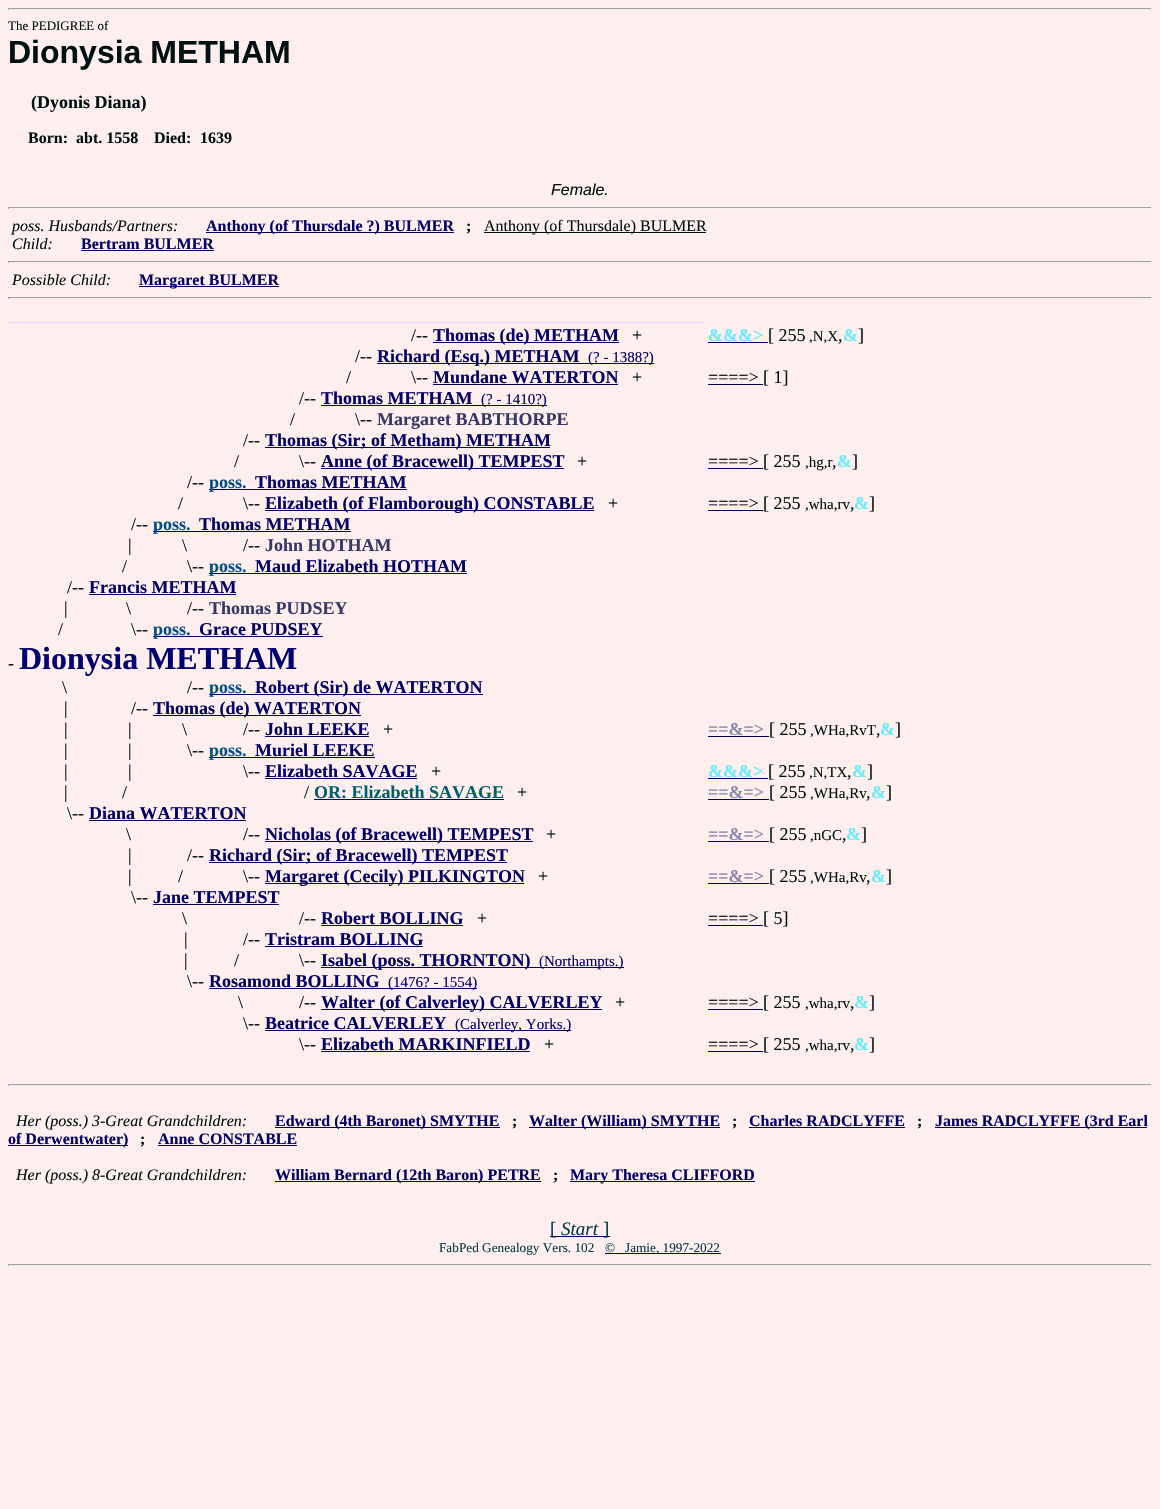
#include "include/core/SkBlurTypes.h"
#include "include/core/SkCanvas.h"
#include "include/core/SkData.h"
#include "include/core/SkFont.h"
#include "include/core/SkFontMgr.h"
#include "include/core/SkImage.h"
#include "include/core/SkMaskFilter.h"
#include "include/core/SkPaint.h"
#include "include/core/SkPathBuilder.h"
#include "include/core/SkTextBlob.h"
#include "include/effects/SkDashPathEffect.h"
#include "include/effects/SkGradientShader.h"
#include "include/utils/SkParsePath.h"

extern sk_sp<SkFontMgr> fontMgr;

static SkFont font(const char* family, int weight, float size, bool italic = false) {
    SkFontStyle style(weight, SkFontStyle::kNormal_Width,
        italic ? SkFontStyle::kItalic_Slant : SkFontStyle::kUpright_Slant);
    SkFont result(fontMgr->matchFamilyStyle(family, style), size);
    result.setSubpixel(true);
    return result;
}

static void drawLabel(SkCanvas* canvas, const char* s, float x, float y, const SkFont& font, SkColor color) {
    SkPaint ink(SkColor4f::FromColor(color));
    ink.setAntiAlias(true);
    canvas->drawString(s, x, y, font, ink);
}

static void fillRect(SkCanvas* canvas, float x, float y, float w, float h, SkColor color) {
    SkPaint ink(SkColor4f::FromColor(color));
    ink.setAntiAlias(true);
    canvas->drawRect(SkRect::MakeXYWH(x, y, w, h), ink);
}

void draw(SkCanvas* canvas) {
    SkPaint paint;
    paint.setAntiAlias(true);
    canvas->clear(0xFFFFEEEE);
    fillRect(canvas, 8, 8, 1144, 1, 0xFF9F9F9F);
    fillRect(canvas, 1151, 8, 1, 2, 0xFFEEEEEE);
    fillRect(canvas, 8, 9, 1144, 1, 0xFFEEEEEE);
    fillRect(canvas, 8, 8, 1, 2, 0xFF9F9F9F);
    SkFont font1 = font("Liberation Serif", 400, 13);
    drawLabel(canvas, "The PEDIGREE of", 8, 30, font1, 0xFF001111);
    SkFont font2 = font("Liberation Sans", 700, 32);
    drawLabel(canvas, "Dionysia METHAM", 8, 63, font2, 0xFF001111);
    SkFont font3 = font("Liberation Serif", 700, 18);
    drawLabel(canvas, "(Dyonis Diana)", 31, 108, font3, 0xFF001111);
    SkFont font4 = font("Liberation Serif", 700, 16);
    drawLabel(canvas, "Born:", 28, 143, font4, 0xFF001111);
    drawLabel(canvas, "abt. 1558", 76, 143, font4, 0xFF001111);
    drawLabel(canvas, "Died:", 154, 143, font4, 0xFF001111);
    drawLabel(canvas, "1639", 200, 143, font4, 0xFF001111);
    SkFont font5 = font("Liberation Sans", 400, 16, true);
    drawLabel(canvas, "Female.", 551, 195, font5, 0xFF001111);
    fillRect(canvas, 8, 207, 1144, 1, 0xFF9F9F9F);
    fillRect(canvas, 1151, 207, 1, 2, 0xFFEEEEEE);
    fillRect(canvas, 8, 208, 1144, 1, 0xFFEEEEEE);
    fillRect(canvas, 8, 207, 1, 2, 0xFF9F9F9F);
    SkFont font6 = font("Liberation Serif", 400, 16, true);
    drawLabel(canvas, "poss. Husbands/Partners:", 12, 231, font6, 0xFF001111);
    fillRect(canvas, 206, 232, 248, 1, 0xFF000066);
    drawLabel(canvas, "Anthony (of Thursdale ?) BULMER", 206, 231, font4, 0xFF000066);
    drawLabel(canvas, ";", 466, 231, font4, 0xFF001111);
    fillRect(canvas, 484, 232, 222, 1, 0xFF001111);
    SkFont font7 = font("Liberation Serif", 400, 16);
    drawLabel(canvas, "Anthony (of Thursdale) BULMER", 484, 231, font7, 0xFF001111);
    drawLabel(canvas, "Child:", 12, 249, font6, 0xFF001111);
    drawLabel(canvas, "Bertram BULMER", 81, 249, font4, 0xFF000066);
    fillRect(canvas, 81, 250, 133, 1, 0xFF000066);
    fillRect(canvas, 8, 261, 1144, 1, 0xFF9F9F9F);
    fillRect(canvas, 1151, 261, 1, 2, 0xFFEEEEEE);
    fillRect(canvas, 8, 262, 1144, 1, 0xFFEEEEEE);
    fillRect(canvas, 8, 261, 1, 2, 0xFF9F9F9F);
    drawLabel(canvas, "Possible Child:", 12, 285, font6, 0xFF001111);
    fillRect(canvas, 139, 286, 140, 1, 0xFF000066);
    drawLabel(canvas, "Margaret BULMER", 139, 285, font4, 0xFF000066);
    fillRect(canvas, 8, 297, 1144, 1, 0xFF9F9F9F);
    fillRect(canvas, 1151, 297, 1, 2, 0xFFEEEEEE);
    fillRect(canvas, 8, 298, 1144, 1, 0xFFEEEEEE);
    fillRect(canvas, 8, 297, 1, 2, 0xFF9F9F9F);
    drawLabel(canvas, "_______________________________________________________________________________________", 8, 321, font4, 0xFFDDDDFF);
    SkFont font8 = font("Liberation Serif", 400, 18);
    drawLabel(canvas, "/--", 411, 341, font8, 0xFF001111);
    fillRect(canvas, 433, 342, 186, 1, 0xFF000066);
    drawLabel(canvas, "Thomas (de) METHAM", 433, 341, font3, 0xFF000066);
    drawLabel(canvas, "+", 632, 341, font8, 0xFF001111);
    drawLabel(canvas, "&&&>", 708, 341, font3, 0xFF68ECFC);
    fillRect(canvas, 708, 342, 60, 1, 0xFF000066);
    drawLabel(canvas, "[ 255", 768, 341, font8, 0xFF001111);
    SkFont font9 = font("Liberation Serif", 400, 15);
    drawLabel(canvas, ",N,X", 809, 341, font9, 0xFF001111);
    drawLabel(canvas, ",", 838, 341, font8, 0xFF001111);
    drawLabel(canvas, "&", 843, 341, font3, 0xFF68ECFC);
    drawLabel(canvas, "]", 858, 341, font8, 0xFF001111);
    drawLabel(canvas, "/--", 355, 362, font8, 0xFF001111);
    fillRect(canvas, 377, 363, 277, 1, 0xFF000066);
    drawLabel(canvas, "Richard (Esq.) METHAM", 377, 362, font3, 0xFF000066);
    drawLabel(canvas, "(? - 1388?)", 588, 362, font9, 0xFF000066);
    drawLabel(canvas, "/", 346, 383, font8, 0xFF001111);
    drawLabel(canvas, "\\--", 411, 383, font8, 0xFF001111);
    drawLabel(canvas, "Mundane WATERTON", 433, 383, font3, 0xFF000066);
    fillRect(canvas, 433, 384, 185, 1, 0xFF000066);
    drawLabel(canvas, "+", 632, 383, font8, 0xFF001111);
    drawLabel(canvas, "====>", 708, 383, font8, 0xFF000000);
    fillRect(canvas, 708, 384, 55, 1, 0xFF000066);
    drawLabel(canvas, "[ 1]", 763, 383, font8, 0xFF001111);
    drawLabel(canvas, "/--", 299, 404, font8, 0xFF001111);
    drawLabel(canvas, "Thomas METHAM", 321, 404, font3, 0xFF000066);
    fillRect(canvas, 321, 405, 226, 1, 0xFF000066);
    drawLabel(canvas, "(? - 1410?)", 481, 404, font9, 0xFF000066);
    drawLabel(canvas, "/", 290, 425, font8, 0xFF001111);
    drawLabel(canvas, "\\--", 355, 425, font8, 0xFF001111);
    drawLabel(canvas, "Margaret BABTHORPE", 377, 425, font3, 0xFF383868);
    drawLabel(canvas, "/--", 243, 446, font8, 0xFF001111);
    fillRect(canvas, 265, 447, 285, 1, 0xFF000066);
    drawLabel(canvas, "Thomas (Sir; of Metham) METHAM", 265, 446, font3, 0xFF000066);
    drawLabel(canvas, "/", 234, 467, font8, 0xFF001111);
    drawLabel(canvas, "\\--", 299, 467, font8, 0xFF001111);
    fillRect(canvas, 321, 468, 243, 1, 0xFF000066);
    drawLabel(canvas, "Anne (of Bracewell) TEMPEST", 321, 467, font3, 0xFF000066);
    drawLabel(canvas, "+", 577, 467, font8, 0xFF001111);
    drawLabel(canvas, "====>", 708, 467, font8, 0xFF000000);
    fillRect(canvas, 708, 468, 55, 1, 0xFF000066);
    drawLabel(canvas, "[ 255", 763, 467, font8, 0xFF001111);
    drawLabel(canvas, ",hg,r", 805, 467, font9, 0xFF001111);
    drawLabel(canvas, ",", 832, 467, font8, 0xFF001111);
    drawLabel(canvas, "&", 837, 467, font3, 0xFF68ECFC);
    drawLabel(canvas, "]", 852, 467, font8, 0xFF001111);
    drawLabel(canvas, "/--", 187, 488, font8, 0xFF001111);
    fillRect(canvas, 209, 489, 198, 1, 0xFF000066);
    drawLabel(canvas, "poss.", 209, 488, font3, 0xFF005088);
    drawLabel(canvas, "Thomas METHAM", 255, 488, font3, 0xFF000066);
    drawLabel(canvas, "/", 178, 509, font8, 0xFF001111);
    drawLabel(canvas, "\\--", 243, 509, font8, 0xFF001111);
    fillRect(canvas, 265, 510, 329, 1, 0xFF000066);
    drawLabel(canvas, "Elizabeth (of Flamborough) CONSTABLE", 265, 509, font3, 0xFF000066);
    drawLabel(canvas, "+", 608, 509, font8, 0xFF001111);
    drawLabel(canvas, "====>", 708, 509, font8, 0xFF000000);
    fillRect(canvas, 708, 510, 55, 1, 0xFF000066);
    drawLabel(canvas, "[ 255", 763, 509, font8, 0xFF001111);
    drawLabel(canvas, ",wha,rv", 805, 509, font9, 0xFF001111);
    drawLabel(canvas, ",", 850, 509, font8, 0xFF001111);
    drawLabel(canvas, "&", 854, 509, font3, 0xFF68ECFC);
    drawLabel(canvas, "]", 869, 509, font8, 0xFF001111);
    drawLabel(canvas, "/--", 131, 530, font8, 0xFF001111);
    fillRect(canvas, 153, 531, 198, 1, 0xFF000066);
    drawLabel(canvas, "poss.", 153, 530, font3, 0xFF005088);
    drawLabel(canvas, "Thomas METHAM", 199, 530, font3, 0xFF000066);
    drawLabel(canvas, "|", 128, 551, font8, 0xFF001111);
    drawLabel(canvas, "\\", 182, 551, font8, 0xFF001111);
    drawLabel(canvas, "/--", 243, 551, font8, 0xFF001111);
    drawLabel(canvas, "John HOTHAM", 265, 551, font3, 0xFF383868);
    drawLabel(canvas, "/", 122, 572, font8, 0xFF001111);
    drawLabel(canvas, "\\--", 187, 572, font8, 0xFF001111);
    fillRect(canvas, 209, 573, 258, 1, 0xFF000066);
    drawLabel(canvas, "poss.", 209, 572, font3, 0xFF005088);
    drawLabel(canvas, "Maud Elizabeth HOTHAM", 255, 572, font3, 0xFF000066);
    drawLabel(canvas, "/--", 67, 593, font8, 0xFF001111);
    drawLabel(canvas, "Francis METHAM", 89, 593, font3, 0xFF000066);
    fillRect(canvas, 89, 594, 147, 1, 0xFF000066);
    drawLabel(canvas, "|", 64, 614, font8, 0xFF001111);
    drawLabel(canvas, "\\", 126, 614, font8, 0xFF001111);
    drawLabel(canvas, "/--", 187, 614, font8, 0xFF001111);
    drawLabel(canvas, "Thomas PUDSEY", 209, 614, font3, 0xFF383868);
    drawLabel(canvas, "/", 58, 635, font8, 0xFF001111);
    drawLabel(canvas, "\\--", 131, 635, font8, 0xFF001111);
    fillRect(canvas, 153, 636, 170, 1, 0xFF000066);
    drawLabel(canvas, "poss.", 153, 635, font3, 0xFF005088);
    drawLabel(canvas, "Grace PUDSEY", 199, 635, font3, 0xFF000066);
    drawLabel(canvas, "-", 8, 669, font8, 0xFF001111);
    SkFont font10 = font("Liberation Serif", 700, 32);
    drawLabel(canvas, "Dionysia METHAM", 19, 669, font10, 0xFF000070);
    drawLabel(canvas, "\\", 62, 693, font8, 0xFF001111);
    drawLabel(canvas, "/--", 187, 693, font8, 0xFF001111);
    fillRect(canvas, 209, 694, 274, 1, 0xFF000066);
    drawLabel(canvas, "poss.", 209, 693, font3, 0xFF005088);
    drawLabel(canvas, "Robert (Sir) de WATERTON", 255, 693, font3, 0xFF000066);
    drawLabel(canvas, "|", 64, 714, font8, 0xFF001111);
    drawLabel(canvas, "/--", 131, 714, font8, 0xFF001111);
    fillRect(canvas, 153, 715, 208, 1, 0xFF000066);
    drawLabel(canvas, "Thomas (de) WATERTON", 153, 714, font3, 0xFF000066);
    drawLabel(canvas, "|", 64, 735, font8, 0xFF001111);
    drawLabel(canvas, "|", 128, 735, font8, 0xFF001111);
    drawLabel(canvas, "\\", 182, 735, font8, 0xFF001111);
    drawLabel(canvas, "/--", 243, 735, font8, 0xFF001111);
    drawLabel(canvas, "John LEEKE", 265, 735, font3, 0xFF000066);
    fillRect(canvas, 265, 736, 104, 1, 0xFF000066);
    drawLabel(canvas, "+", 383, 735, font8, 0xFF001111);
    drawLabel(canvas, "==&=>", 708, 735, font3, 0xFF8888AC);
    fillRect(canvas, 708, 736, 61, 1, 0xFF000066);
    drawLabel(canvas, "[ 255", 769, 735, font8, 0xFF001111);
    drawLabel(canvas, ",WHa,RvT", 810, 735, font9, 0xFF001111);
    drawLabel(canvas, ",", 876, 735, font8, 0xFF001111);
    drawLabel(canvas, "&", 880, 735, font3, 0xFF68ECFC);
    drawLabel(canvas, "]", 895, 735, font8, 0xFF001111);
    drawLabel(canvas, "|", 64, 756, font8, 0xFF001111);
    drawLabel(canvas, "|", 128, 756, font8, 0xFF001111);
    drawLabel(canvas, "\\--", 187, 756, font8, 0xFF001111);
    fillRect(canvas, 209, 757, 166, 1, 0xFF000066);
    drawLabel(canvas, "poss.", 209, 756, font3, 0xFF005088);
    drawLabel(canvas, "Muriel LEEKE", 255, 756, font3, 0xFF000066);
    drawLabel(canvas, "|", 64, 777, font8, 0xFF001111);
    drawLabel(canvas, "|", 128, 777, font8, 0xFF001111);
    drawLabel(canvas, "\\--", 243, 777, font8, 0xFF001111);
    drawLabel(canvas, "Elizabeth SAVAGE", 265, 777, font3, 0xFF000066);
    fillRect(canvas, 265, 778, 152, 1, 0xFF000066);
    drawLabel(canvas, "+", 431, 777, font8, 0xFF001111);
    drawLabel(canvas, "&&&>", 708, 777, font3, 0xFF68ECFC);
    fillRect(canvas, 708, 778, 60, 1, 0xFF000066);
    drawLabel(canvas, "[ 255", 768, 777, font8, 0xFF001111);
    drawLabel(canvas, ",N,TX", 809, 777, font9, 0xFF001111);
    drawLabel(canvas, ",", 847, 777, font8, 0xFF001111);
    drawLabel(canvas, "&", 852, 777, font3, 0xFF68ECFC);
    drawLabel(canvas, "]", 867, 777, font8, 0xFF001111);
    drawLabel(canvas, "|", 64, 798, font8, 0xFF001111);
    drawLabel(canvas, "/", 122, 798, font8, 0xFF001111);
    drawLabel(canvas, "/", 304, 798, font8, 0xFF001111);
    drawLabel(canvas, "OR: Elizabeth SAVAGE", 314, 798, font3, 0xFF006070);
    fillRect(canvas, 314, 799, 190, 1, 0xFF000066);
    drawLabel(canvas, "+", 517, 798, font8, 0xFF001111);
    drawLabel(canvas, "==&=>", 708, 798, font3, 0xFF8888AC);
    fillRect(canvas, 708, 799, 61, 1, 0xFF000066);
    drawLabel(canvas, "[ 255", 769, 798, font8, 0xFF001111);
    drawLabel(canvas, ",WHa,Rv", 810, 798, font9, 0xFF001111);
    drawLabel(canvas, ",", 866, 798, font8, 0xFF001111);
    drawLabel(canvas, "&", 871, 798, font3, 0xFF68ECFC);
    drawLabel(canvas, "]", 886, 798, font8, 0xFF001111);
    drawLabel(canvas, "\\--", 67, 819, font8, 0xFF001111);
    drawLabel(canvas, "Diana WATERTON", 89, 819, font3, 0xFF000066);
    fillRect(canvas, 89, 820, 157, 1, 0xFF000066);
    drawLabel(canvas, "\\", 126, 840, font8, 0xFF001111);
    drawLabel(canvas, "/--", 243, 840, font8, 0xFF001111);
    fillRect(canvas, 265, 841, 268, 1, 0xFF000066);
    drawLabel(canvas, "Nicholas (of Bracewell) TEMPEST", 265, 840, font3, 0xFF000066);
    drawLabel(canvas, "+", 546, 840, font8, 0xFF001111);
    drawLabel(canvas, "==&=>", 708, 840, font3, 0xFF8888AC);
    fillRect(canvas, 708, 841, 61, 1, 0xFF000066);
    drawLabel(canvas, "[ 255", 769, 840, font8, 0xFF001111);
    drawLabel(canvas, ",nGC", 810, 840, font9, 0xFF001111);
    drawLabel(canvas, ",", 842, 840, font8, 0xFF001111);
    drawLabel(canvas, "&", 846, 840, font3, 0xFF68ECFC);
    drawLabel(canvas, "]", 861, 840, font8, 0xFF001111);
    drawLabel(canvas, "|", 128, 861, font8, 0xFF001111);
    drawLabel(canvas, "/--", 187, 861, font8, 0xFF001111);
    fillRect(canvas, 209, 862, 298, 1, 0xFF000066);
    drawLabel(canvas, "Richard (Sir; of Bracewell) TEMPEST", 209, 861, font3, 0xFF000066);
    drawLabel(canvas, "|", 128, 882, font8, 0xFF001111);
    drawLabel(canvas, "/", 178, 882, font8, 0xFF001111);
    drawLabel(canvas, "\\--", 243, 882, font8, 0xFF001111);
    fillRect(canvas, 265, 883, 259, 1, 0xFF000066);
    drawLabel(canvas, "Margaret (Cecily) PILKINGTON", 265, 882, font3, 0xFF000066);
    drawLabel(canvas, "+", 538, 882, font8, 0xFF001111);
    drawLabel(canvas, "==&=>", 708, 882, font3, 0xFF8888AC);
    fillRect(canvas, 708, 883, 61, 1, 0xFF000066);
    drawLabel(canvas, "[ 255", 769, 882, font8, 0xFF001111);
    drawLabel(canvas, ",WHa,Rv", 810, 882, font9, 0xFF001111);
    drawLabel(canvas, ",", 866, 882, font8, 0xFF001111);
    drawLabel(canvas, "&", 871, 882, font3, 0xFF68ECFC);
    drawLabel(canvas, "]", 886, 882, font8, 0xFF001111);
    drawLabel(canvas, "\\--", 131, 903, font8, 0xFF001111);
    drawLabel(canvas, "Jane TEMPEST", 153, 903, font3, 0xFF000066);
    fillRect(canvas, 153, 904, 126, 1, 0xFF000066);
    drawLabel(canvas, "\\", 182, 924, font8, 0xFF001111);
    drawLabel(canvas, "/--", 299, 924, font8, 0xFF001111);
    drawLabel(canvas, "Robert BOLLING", 321, 924, font3, 0xFF000066);
    fillRect(canvas, 321, 925, 142, 1, 0xFF000066);
    drawLabel(canvas, "+", 477, 924, font8, 0xFF001111);
    drawLabel(canvas, "====>", 708, 924, font8, 0xFF000000);
    fillRect(canvas, 708, 925, 55, 1, 0xFF000066);
    drawLabel(canvas, "[ 5]", 763, 924, font8, 0xFF001111);
    drawLabel(canvas, "|", 184, 945, font8, 0xFF001111);
    drawLabel(canvas, "/--", 243, 945, font8, 0xFF001111);
    drawLabel(canvas, "Tristram BOLLING", 265, 945, font3, 0xFF000066);
    fillRect(canvas, 265, 946, 158, 1, 0xFF000066);
    drawLabel(canvas, "|", 184, 966, font8, 0xFF001111);
    drawLabel(canvas, "/", 234, 966, font8, 0xFF001111);
    drawLabel(canvas, "\\--", 299, 966, font8, 0xFF001111);
    fillRect(canvas, 321, 967, 303, 1, 0xFF000066);
    drawLabel(canvas, "Isabel (poss. THORNTON)", 321, 966, font3, 0xFF000066);
    drawLabel(canvas, "(Northampts.)", 539, 966, font9, 0xFF000066);
    drawLabel(canvas, "\\--", 187, 987, font8, 0xFF001111);
    drawLabel(canvas, "Rosamond BOLLING", 209, 987, font3, 0xFF000066);
    fillRect(canvas, 209, 988, 268, 1, 0xFF000066);
    drawLabel(canvas, "(1476? - 1554)", 388, 987, font9, 0xFF000066);
    drawLabel(canvas, "\\", 238, 1008, font8, 0xFF001111);
    drawLabel(canvas, "/--", 299, 1008, font8, 0xFF001111);
    fillRect(canvas, 321, 1009, 281, 1, 0xFF000066);
    drawLabel(canvas, "Walter (of Calverley) CALVERLEY", 321, 1008, font3, 0xFF000066);
    drawLabel(canvas, "+", 615, 1008, font8, 0xFF001111);
    drawLabel(canvas, "====>", 708, 1008, font8, 0xFF000000);
    fillRect(canvas, 708, 1009, 55, 1, 0xFF000066);
    drawLabel(canvas, "[ 255", 763, 1008, font8, 0xFF001111);
    drawLabel(canvas, ",wha,rv", 805, 1008, font9, 0xFF001111);
    drawLabel(canvas, ",", 850, 1008, font8, 0xFF001111);
    drawLabel(canvas, "&", 854, 1008, font3, 0xFF68ECFC);
    drawLabel(canvas, "]", 869, 1008, font8, 0xFF001111);
    drawLabel(canvas, "\\--", 243, 1029, font8, 0xFF001111);
    drawLabel(canvas, "Beatrice CALVERLEY", 265, 1029, font3, 0xFF000066);
    fillRect(canvas, 265, 1030, 306, 1, 0xFF000066);
    drawLabel(canvas, "(Calverley, Yorks.)", 455, 1029, font9, 0xFF000066);
    drawLabel(canvas, "\\--", 299, 1050, font8, 0xFF001111);
    drawLabel(canvas, "Elizabeth MARKINFIELD", 321, 1050, font3, 0xFF000066);
    fillRect(canvas, 321, 1051, 209, 1, 0xFF000066);
    drawLabel(canvas, "+", 544, 1050, font8, 0xFF001111);
    drawLabel(canvas, "====>", 708, 1050, font8, 0xFF000000);
    fillRect(canvas, 708, 1051, 55, 1, 0xFF000066);
    drawLabel(canvas, "[ 255", 763, 1050, font8, 0xFF001111);
    drawLabel(canvas, ",wha,rv", 805, 1050, font9, 0xFF001111);
    drawLabel(canvas, ",", 850, 1050, font8, 0xFF001111);
    drawLabel(canvas, "&", 854, 1050, font3, 0xFF68ECFC);
    drawLabel(canvas, "]", 869, 1050, font8, 0xFF001111);
    fillRect(canvas, 8, 1084, 1144, 1, 0xFF9F9F9F);
    fillRect(canvas, 1151, 1084, 1, 2, 0xFFEEEEEE);
    fillRect(canvas, 8, 1085, 1144, 1, 0xFFEEEEEE);
    fillRect(canvas, 8, 1084, 1, 2, 0xFF9F9F9F);
    drawLabel(canvas, "Her (poss.) 3-Great Grandchildren:", 16, 1126, font6, 0xFF001111);
    fillRect(canvas, 275, 1127, 225, 1, 0xFF000066);
    drawLabel(canvas, "Edward (4th Baronet) SMYTHE", 275, 1126, font4, 0xFF000066);
    drawLabel(canvas, ";", 512, 1126, font4, 0xFF001111);
    fillRect(canvas, 529, 1127, 191, 1, 0xFF000066);
    drawLabel(canvas, "Walter (William) SMYTHE", 529, 1126, font4, 0xFF000066);
    drawLabel(canvas, ";", 732, 1126, font4, 0xFF001111);
    drawLabel(canvas, "Charles RADCLYFFE", 749, 1126, font4, 0xFF000066);
    fillRect(canvas, 749, 1127, 156, 1, 0xFF000066);
    drawLabel(canvas, ";", 917, 1126, font4, 0xFF001111);
    fillRect(canvas, 935, 1127, 212, 1, 0xFF000066);
    drawLabel(canvas, "James RADCLYFFE (3rd Earl", 935, 1126, font4, 0xFF000066);
    fillRect(canvas, 8, 1145, 120, 1, 0xFF000066);
    drawLabel(canvas, "of Derwentwater)", 8, 1144, font4, 0xFF000066);
    drawLabel(canvas, ";", 140, 1144, font4, 0xFF001111);
    drawLabel(canvas, "Anne CONSTABLE", 158, 1144, font4, 0xFF000066);
    fillRect(canvas, 158, 1145, 139, 1, 0xFF000066);
    drawLabel(canvas, "Her (poss.) 8-Great Grandchildren:", 16, 1180, font6, 0xFF001111);
    fillRect(canvas, 275, 1181, 266, 1, 0xFF000066);
    drawLabel(canvas, "William Bernard (12th Baron) PETRE", 275, 1180, font4, 0xFF000066);
    drawLabel(canvas, ";", 553, 1180, font4, 0xFF001111);
    fillRect(canvas, 570, 1181, 185, 1, 0xFF000066);
    drawLabel(canvas, "Mary Theresa CLIFFORD", 570, 1180, font4, 0xFF000066);
    fillRect(canvas, 550, 1236, 60, 1, 0xFF000066);
    SkFont font11 = font("Liberation Serif", 400, 19);
    drawLabel(canvas, "[", 550, 1235, font11, 0xFF003C48);
    SkFont font12 = font("Liberation Serif", 400, 19, true);
    drawLabel(canvas, "Start", 561, 1235, font12, 0xFF003C48);
    drawLabel(canvas, "]", 603, 1235, font11, 0xFF003C48);
    SkFont font13 = font("Liberation Serif", 400, 13.25f);
    drawLabel(canvas, "FabPed Genealogy Vers. 102", 439, 1252, font13, 0xFF003C48);
    fillRect(canvas, 605, 1253, 116, 1, 0xFF000066);
    drawLabel(canvas, "©   Jamie, 1997-2022", 605, 1252, font13, 0xFF003C48);
    fillRect(canvas, 8, 1264, 1144, 1, 0xFF9F9F9F);
    fillRect(canvas, 1151, 1264, 1, 2, 0xFFEEEEEE);
    fillRect(canvas, 8, 1265, 1144, 1, 0xFFEEEEEE);
    fillRect(canvas, 8, 1264, 1, 2, 0xFF9F9F9F);
}
